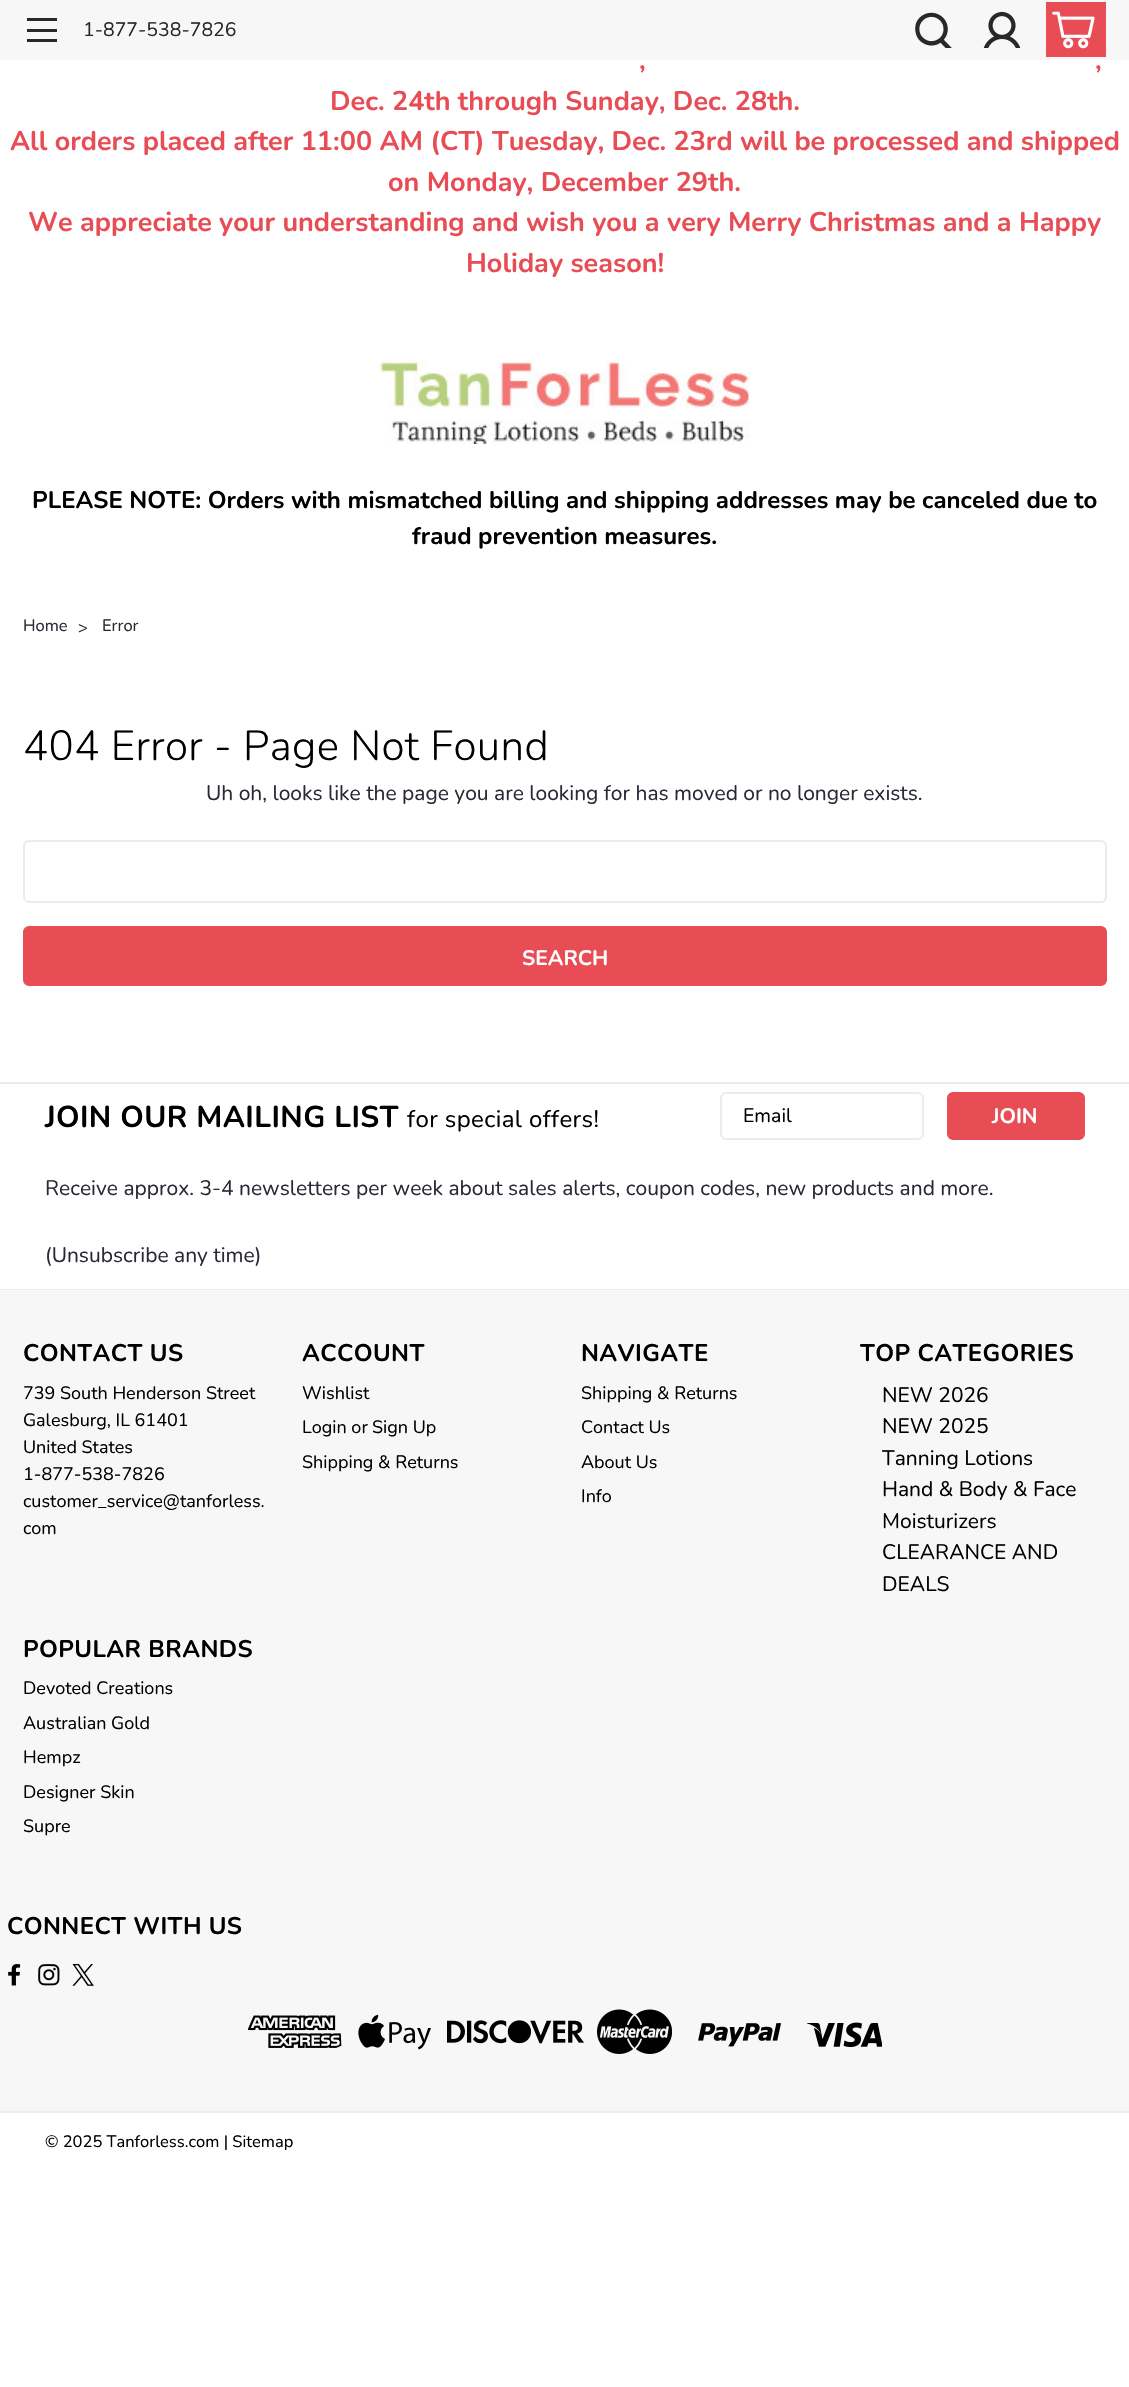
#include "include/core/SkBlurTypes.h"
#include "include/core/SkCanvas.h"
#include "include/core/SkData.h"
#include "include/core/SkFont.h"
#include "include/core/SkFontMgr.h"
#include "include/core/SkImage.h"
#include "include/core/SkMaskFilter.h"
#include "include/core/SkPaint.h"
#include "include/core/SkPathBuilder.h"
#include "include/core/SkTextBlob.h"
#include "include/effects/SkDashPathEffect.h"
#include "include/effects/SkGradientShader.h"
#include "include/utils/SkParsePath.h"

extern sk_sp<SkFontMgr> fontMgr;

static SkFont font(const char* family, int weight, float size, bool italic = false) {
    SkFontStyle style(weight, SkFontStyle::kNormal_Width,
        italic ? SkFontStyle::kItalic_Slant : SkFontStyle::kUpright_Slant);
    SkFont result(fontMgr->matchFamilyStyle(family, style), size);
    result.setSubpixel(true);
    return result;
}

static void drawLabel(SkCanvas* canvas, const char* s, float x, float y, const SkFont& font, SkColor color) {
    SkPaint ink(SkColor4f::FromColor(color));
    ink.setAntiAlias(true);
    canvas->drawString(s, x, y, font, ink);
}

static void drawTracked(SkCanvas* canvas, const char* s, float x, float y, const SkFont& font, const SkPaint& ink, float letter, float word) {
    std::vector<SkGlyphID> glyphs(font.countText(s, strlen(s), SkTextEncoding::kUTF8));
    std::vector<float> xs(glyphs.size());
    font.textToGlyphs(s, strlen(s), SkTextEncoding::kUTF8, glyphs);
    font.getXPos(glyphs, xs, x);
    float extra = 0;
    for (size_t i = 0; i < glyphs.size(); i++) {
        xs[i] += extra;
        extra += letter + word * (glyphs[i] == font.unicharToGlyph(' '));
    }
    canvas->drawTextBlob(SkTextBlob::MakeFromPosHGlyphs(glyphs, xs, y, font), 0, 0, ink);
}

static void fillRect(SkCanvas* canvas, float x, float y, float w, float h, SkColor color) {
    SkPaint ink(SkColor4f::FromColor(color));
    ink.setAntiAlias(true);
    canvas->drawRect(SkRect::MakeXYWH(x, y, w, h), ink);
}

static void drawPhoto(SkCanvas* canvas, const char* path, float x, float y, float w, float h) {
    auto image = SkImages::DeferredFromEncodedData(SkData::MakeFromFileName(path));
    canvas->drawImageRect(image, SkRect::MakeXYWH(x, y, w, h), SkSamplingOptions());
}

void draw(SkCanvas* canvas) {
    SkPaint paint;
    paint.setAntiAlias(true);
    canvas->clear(0xFFFFFFFF);
    fillRect(canvas, 0, 0, 1129, 60, 0xFFF7F7F7);
    fillRect(canvas, 27, 29, 30, 3, 0xFF282828);
    fillRect(canvas, 27, 18, 30, 3, 0xFF282828);
    fillRect(canvas, 27, 39, 30, 3, 0xFF282828);
    SkFont font1 = font("Nunito", 400, 19.5f);
    drawLabel(canvas, "1-877-538-7826", 83, 36, font1, 0xFF282828);
    drawPhoto(canvas, "assets/img1.png", 915, 12, 37, 36);
    drawPhoto(canvas, "assets/img2.png", 983, 11, 38, 37);
    fillRect(canvas, 1046, 2, 60, 55, 0xFFE84D56);
    drawPhoto(canvas, "assets/img3.png", 1052, 11, 43, 38);
    drawPhoto(canvas, "assets/img4.png", 378, 360, 372, 84);
    SkFont font2 = font("Nunito", 700, 24);
    drawLabel(canvas, "PLEASE NOTE: Orders with mismatched billing and shipping addresses may be canceled due to", 32, 508, font2, 0xFF000000);
    drawLabel(canvas, "fraud prevention measures.", 412, 544, font2, 0xFF000000);
    SkFont font3 = font("Nunito", 700, 27);
    drawLabel(canvas, ",", 639, 69, font3, 0xFFE84D56);
    drawLabel(canvas, ",", 1095, 69, font3, 0xFFE84D56);
    drawLabel(canvas, "Dec. 24th through Sunday, Dec. 28th.", 330, 110, font3, 0xFFE84D56);
    drawLabel(canvas, "All orders placed after 11:00 AM (CT) Tuesday, Dec. 23rd will be processed and shipped", 10, 150, font3, 0xFFE84D56);
    drawLabel(canvas, "on Monday, December 29th.", 388, 191, font3, 0xFFE84D56);
    drawLabel(canvas, "We appreciate your understanding and wish you a very Merry Christmas and a Happy", 28, 231, font3, 0xFFE84D56);
    drawLabel(canvas, "Holiday season!", 466, 272, font3, 0xFFE84D56);
    SkFont font4 = font("Nunito", 400, 16.5f);
    drawLabel(canvas, "Home", 23, 631, font4, 0xFF2B2935);
    drawLabel(canvas, ">", 78, 633, font4, 0xFF2B2935);
    drawLabel(canvas, "Error", 102, 631, font4, 0xFF2B2935);
    SkFont font5 = font("Nunito", 300, 42);
    paint.setColor(0xFF000000);
    drawTracked(canvas, "404 Error - Page Not Found", 23, 760, font5, paint, 0.4f, 0);
    SkFont font6 = font("Nunito", 400, 21);
    drawLabel(canvas, "Uh oh, looks like the page you are looking for has moved or no longer exists.", 206, 800, font6, 0xFF2B2935);
    paint.setStroke(true);
    paint.setStrokeWidth(2);
    paint.setColor(0xFFECECEC);
    canvas->drawRoundRect(SkRect::MakeXYWH(24, 841, 1082, 61), 5, 5, paint);
    paint.setStroke(false);
    paint.setColor(0xFFE84D56);
    canvas->drawRoundRect(SkRect::MakeXYWH(24, 927, 1082, 58), 5, 5, paint);
    paint.setStroke(true);
    canvas->drawRoundRect(SkRect::MakeXYWH(24, 927, 1082, 58), 5, 5, paint);
    SkFont font7 = font("Nunito", 700, 21);
    drawLabel(canvas, "SEARCH", 522, 965, font7, 0xFFFFFFFF);
    fillRect(canvas, 0, 1082, 1129, 2, 0xFFECECEC);
    fillRect(canvas, 0, 1289, 1129, 1, 0xFFECECEC);
    SkFont font8 = font("Nunito", 700, 30);
    paint.setStroke(false);
    paint.setColor(0xFF000000);
    drawTracked(canvas, "JOIN OUR MAILING LIST", 45, 1127, font8, paint, 0.4f, 0);
    SkFont font9 = font("Nunito", 400, 24);
    drawTracked(canvas, "for special offers!", 407, 1127, font9, paint, 0.4f, 0);
    paint.setStroke(true);
    paint.setColor(0xFFECECEC);
    canvas->drawRoundRect(SkRect::MakeXYWH(721, 1093, 202, 46), 5, 5, paint);
    drawLabel(canvas, "Email", 743, 1122, font1, 0xFF000000);
    paint.setStroke(false);
    paint.setColor(0xFFE84D56);
    canvas->drawRoundRect(SkRect::MakeXYWH(948, 1093, 136, 46), 5, 5, paint);
    paint.setStroke(true);
    canvas->drawRoundRect(SkRect::MakeXYWH(948, 1093, 136, 46), 5, 5, paint);
    drawLabel(canvas, "JOIN", 992, 1123, font7, 0xFFFFFFFF);
    drawLabel(canvas, "Receive approx. 3-4 newsletters per week about sales alerts, coupon codes, new products and more.", 45, 1195, font6, 0xFF2B2935);
    drawLabel(canvas, "(Unsubscribe any time)", 45, 1262, font6, 0xFF2B2935);
    fillRect(canvas, 0, 1290, 1129, 821, 0xFFF7F7F7);
    paint.setStroke(false);
    paint.setColor(0xFF000000);
    drawTracked(canvas, "CONTACT US", 23, 1361, font2, paint, 0.4f, 0);
    SkFont font10 = font("Nunito", 400, 18);
    drawLabel(canvas, "739 South Henderson Street", 23, 1399, font10, 0xFF000000);
    drawLabel(canvas, "Galesburg, IL 61401", 23, 1426, font10, 0xFF000000);
    drawLabel(canvas, "United States", 23, 1453, font10, 0xFF000000);
    drawLabel(canvas, "1-877-538-7826", 23, 1480, font10, 0xFF000000);
    drawLabel(canvas, "customer_service@tanforless.", 23, 1507, font10, 0xFF000000);
    drawLabel(canvas, "com", 23, 1534, font10, 0xFF000000);
    drawTracked(canvas, "ACCOUNT", 302, 1361, font2, paint, 0.4f, 0);
    drawLabel(canvas, "Wishlist", 302, 1399, font10, 0xFF000000);
    drawLabel(canvas, "Login or", 302, 1433, font10, 0xFF000000);
    drawLabel(canvas, "Sign Up", 372, 1433, font10, 0xFF000000);
    drawLabel(canvas, "Shipping & Returns", 302, 1468, font10, 0xFF000000);
    drawTracked(canvas, "NAVIGATE", 581, 1361, font2, paint, 0.4f, 0);
    drawLabel(canvas, "Shipping & Returns", 581, 1399, font10, 0xFF000000);
    drawLabel(canvas, "Contact Us", 581, 1433, font10, 0xFF000000);
    drawLabel(canvas, "About Us", 581, 1468, font10, 0xFF000000);
    drawLabel(canvas, "Info", 581, 1502, font10, 0xFF000000);
    drawTracked(canvas, "TOP CATEGORIES", 860, 1361, font2, paint, 0.4f, 0);
    drawLabel(canvas, "NEW 2026", 882, 1402, font6, 0xFF000000);
    drawLabel(canvas, "NEW 2025", 882, 1433, font6, 0xFF000000);
    drawLabel(canvas, "Tanning Lotions", 882, 1465, font6, 0xFF000000);
    drawLabel(canvas, "Hand & Body & Face", 882, 1496, font6, 0xFF000000);
    drawLabel(canvas, "Moisturizers", 882, 1528, font6, 0xFF000000);
    drawLabel(canvas, "CLEARANCE AND", 882, 1559, font6, 0xFF000000);
    drawLabel(canvas, "DEALS", 882, 1591, font6, 0xFF000000);
    drawTracked(canvas, "POPULAR BRANDS", 23, 1657, font2, paint, 0.4f, 0);
    drawLabel(canvas, "Devoted Creations", 23, 1694, font10, 0xFF000000);
    drawLabel(canvas, "Australian Gold", 23, 1729, font10, 0xFF000000);
    drawLabel(canvas, "Hempz", 23, 1763, font10, 0xFF000000);
    drawLabel(canvas, "Designer Skin", 23, 1798, font10, 0xFF000000);
    drawLabel(canvas, "Supre", 23, 1832, font10, 0xFF000000);
    drawTracked(canvas, "CONNECT WITH US", 7, 1934, font2, paint, 0.4f, 0);
    drawPhoto(canvas, "assets/img5.png", 8, 1964, 13, 22);
    drawPhoto(canvas, "assets/img6.png", 38, 1964, 22, 22);
    drawPhoto(canvas, "assets/img7.png", 72, 1964, 22, 22);
    drawPhoto(canvas, "assets/img8.png", 248, 2015, 94, 33);
    drawPhoto(canvas, "assets/img9.png", 358, 2014, 73, 36);
    drawPhoto(canvas, "assets/img10.png", 447, 2020, 137, 24);
    drawPhoto(canvas, "assets/img11.png", 597, 2009, 75, 45);
    drawPhoto(canvas, "assets/img12.png", 698, 2023, 83, 24);
    drawPhoto(canvas, "assets/img13.png", 807, 2022, 75, 26);
    fillRect(canvas, 0, 2111, 1129, 2, 0xFFECECEC);
    drawLabel(canvas, "© 2025 Tanforless.com | Sitemap", 45, 2147, font4, 0xFF000000);
}
